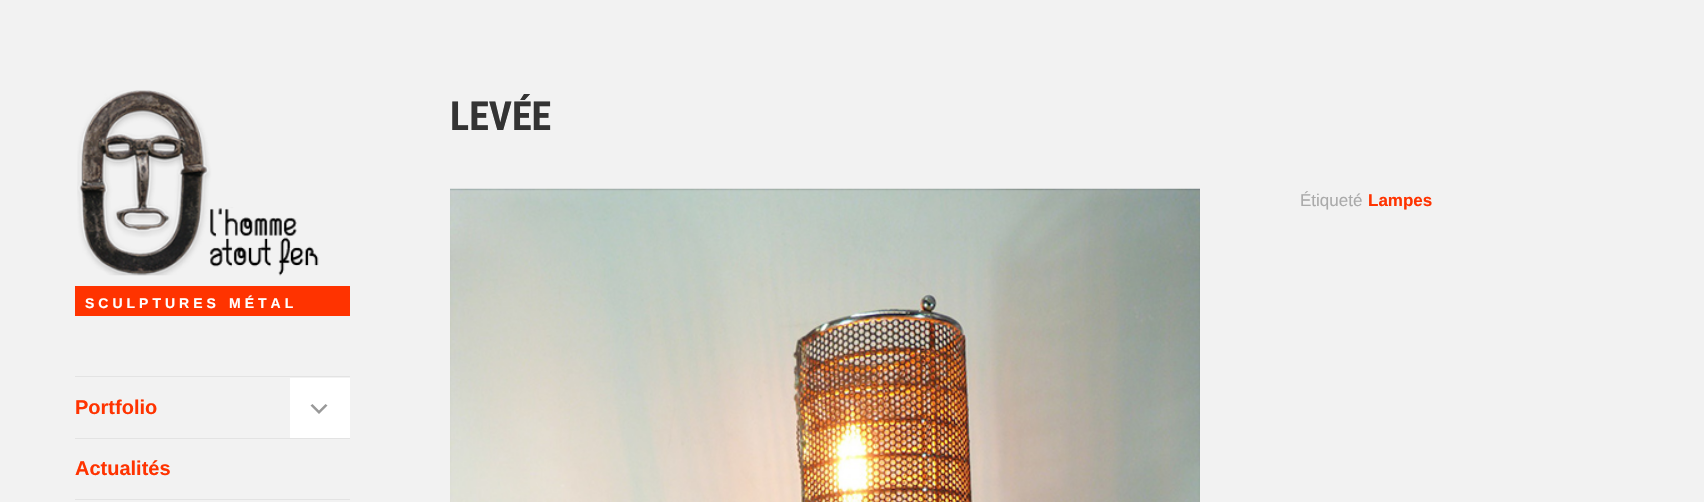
#include "include/core/SkBlurTypes.h"
#include "include/core/SkCanvas.h"
#include "include/core/SkData.h"
#include "include/core/SkFont.h"
#include "include/core/SkFontMgr.h"
#include "include/core/SkImage.h"
#include "include/core/SkMaskFilter.h"
#include "include/core/SkPaint.h"
#include "include/core/SkPathBuilder.h"
#include "include/core/SkTextBlob.h"
#include "include/effects/SkDashPathEffect.h"
#include "include/effects/SkGradientShader.h"
#include "include/utils/SkParsePath.h"

extern sk_sp<SkFontMgr> fontMgr;

static SkFont font(const char* family, int weight, float size, bool italic = false) {
    SkFontStyle style(weight, SkFontStyle::kNormal_Width,
        italic ? SkFontStyle::kItalic_Slant : SkFontStyle::kUpright_Slant);
    SkFont result(fontMgr->matchFamilyStyle(family, style), size);
    result.setSubpixel(true);
    return result;
}

static void drawLabel(SkCanvas* canvas, const char* s, float x, float y, const SkFont& font, SkColor color) {
    SkPaint ink(SkColor4f::FromColor(color));
    ink.setAntiAlias(true);
    canvas->drawString(s, x, y, font, ink);
}

static void drawTracked(SkCanvas* canvas, const char* s, float x, float y, const SkFont& font, const SkPaint& ink, float letter, float word) {
    std::vector<SkGlyphID> glyphs(font.countText(s, strlen(s), SkTextEncoding::kUTF8));
    std::vector<float> xs(glyphs.size());
    font.textToGlyphs(s, strlen(s), SkTextEncoding::kUTF8, glyphs);
    font.getXPos(glyphs, xs, x);
    float extra = 0;
    for (size_t i = 0; i < glyphs.size(); i++) {
        xs[i] += extra;
        extra += letter + word * (glyphs[i] == font.unicharToGlyph(' '));
    }
    canvas->drawTextBlob(SkTextBlob::MakeFromPosHGlyphs(glyphs, xs, y, font), 0, 0, ink);
}

static void fillRect(SkCanvas* canvas, float x, float y, float w, float h, SkColor color) {
    SkPaint ink(SkColor4f::FromColor(color));
    ink.setAntiAlias(true);
    canvas->drawRect(SkRect::MakeXYWH(x, y, w, h), ink);
}

static void drawPhoto(SkCanvas* canvas, const char* path, float x, float y, float w, float h) {
    auto image = SkImages::DeferredFromEncodedData(SkData::MakeFromFileName(path));
    canvas->drawImageRect(image, SkRect::MakeXYWH(x, y, w, h), SkSamplingOptions());
}

static SkPath parsePath(const char* data, bool evenOdd = false) {
    SkPath result = *SkParsePath::FromSVGString(data);
    if (evenOdd) result.setFillType(SkPathFillType::kEvenOdd);
    return result;
}

void draw(SkCanvas* canvas) {
    SkPaint paint;
    paint.setAntiAlias(true);
    canvas->clear(0xFFF2F2F2);
    SkFont font1 = font("Roboto Condensed", 700, 40);
    drawLabel(canvas, "LEVÉE", 450, 130, font1, 0xFF333333);
    drawPhoto(canvas, "assets/img1.png", 450, 188, 750, 314);
    SkFont font2 = font("Arimo", 400, 17);
    drawLabel(canvas, "Étiqueté", 1300, 206, font2, 0xFFAAAAAA);
    SkFont font3 = font("Arimo", 700, 17);
    drawLabel(canvas, "Lampes", 1368, 206, font3, 0xFFFF3300);
    drawPhoto(canvas, "assets/img2.png", 77, 90, 242, 186);
    fillRect(canvas, 75, 286, 275, 30, 0xFFFF3300);
    SkFont font4 = font("Arimo", 700, 14);
    paint.setColor(0xFFFFFFFF);
    drawTracked(canvas, "SCULPTURES", 85, 308, font4, paint, 4, 0);
    drawTracked(canvas, "MÉTAL", 229, 308, font4, paint, 4, 0);
    fillRect(canvas, 75, 376, 275, 1, 0xFFE3E3E3);
    SkFont font5 = font("Arimo", 700, 20);
    drawLabel(canvas, "Portfolio", 75, 414, font5, 0xFFFF3300);
    fillRect(canvas, 290, 378, 60, 60, 0xFFFFFFFF);
    paint.setColor(0xFF999999);
    canvas->drawPath(parsePath("M325.5 404L327.5 405.5L319 414L310.5 405.5L312.5 404L319 410.5Z"), paint);
    fillRect(canvas, 75, 438, 275, 1, 0xFFE3E3E3);
    drawLabel(canvas, "Actualités", 75, 475, font5, 0xFFFF3300);
    fillRect(canvas, 75, 499, 275, 1, 0xFFE3E3E3);
}
